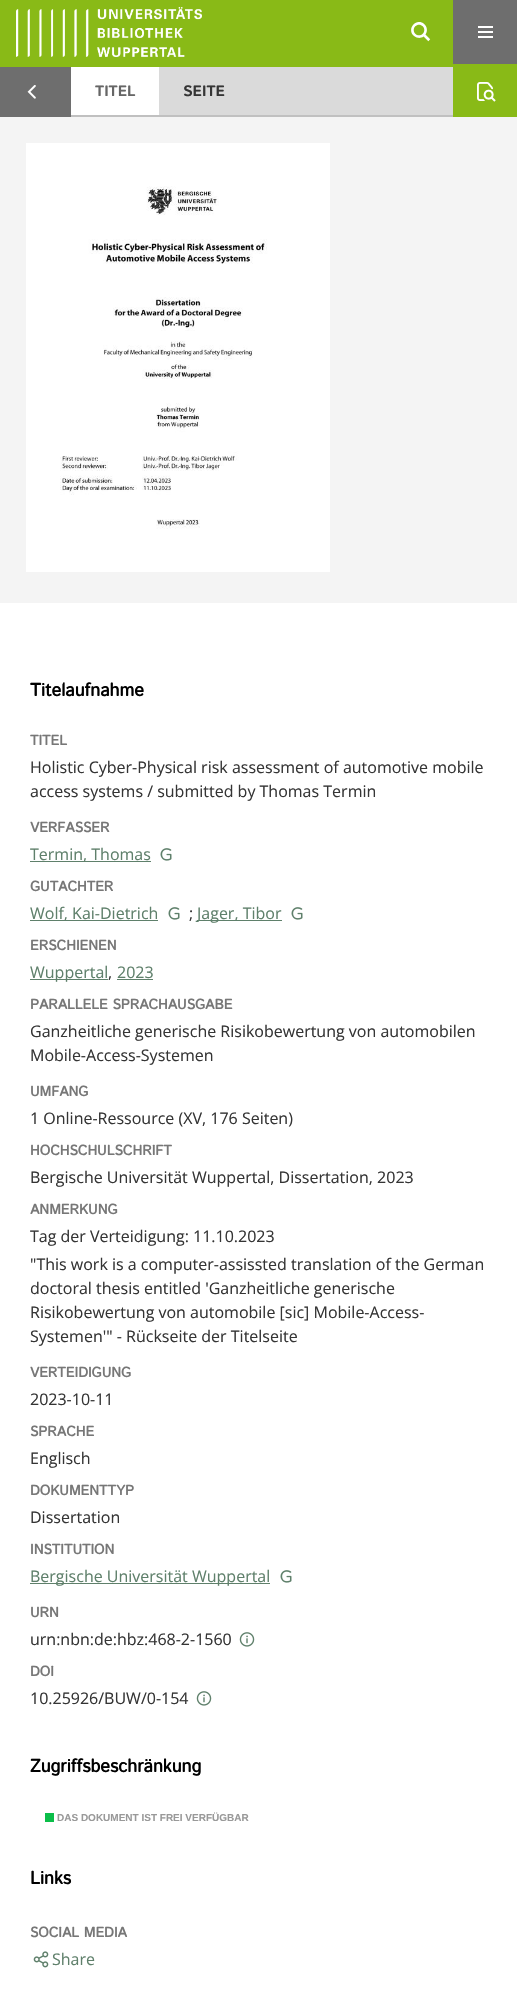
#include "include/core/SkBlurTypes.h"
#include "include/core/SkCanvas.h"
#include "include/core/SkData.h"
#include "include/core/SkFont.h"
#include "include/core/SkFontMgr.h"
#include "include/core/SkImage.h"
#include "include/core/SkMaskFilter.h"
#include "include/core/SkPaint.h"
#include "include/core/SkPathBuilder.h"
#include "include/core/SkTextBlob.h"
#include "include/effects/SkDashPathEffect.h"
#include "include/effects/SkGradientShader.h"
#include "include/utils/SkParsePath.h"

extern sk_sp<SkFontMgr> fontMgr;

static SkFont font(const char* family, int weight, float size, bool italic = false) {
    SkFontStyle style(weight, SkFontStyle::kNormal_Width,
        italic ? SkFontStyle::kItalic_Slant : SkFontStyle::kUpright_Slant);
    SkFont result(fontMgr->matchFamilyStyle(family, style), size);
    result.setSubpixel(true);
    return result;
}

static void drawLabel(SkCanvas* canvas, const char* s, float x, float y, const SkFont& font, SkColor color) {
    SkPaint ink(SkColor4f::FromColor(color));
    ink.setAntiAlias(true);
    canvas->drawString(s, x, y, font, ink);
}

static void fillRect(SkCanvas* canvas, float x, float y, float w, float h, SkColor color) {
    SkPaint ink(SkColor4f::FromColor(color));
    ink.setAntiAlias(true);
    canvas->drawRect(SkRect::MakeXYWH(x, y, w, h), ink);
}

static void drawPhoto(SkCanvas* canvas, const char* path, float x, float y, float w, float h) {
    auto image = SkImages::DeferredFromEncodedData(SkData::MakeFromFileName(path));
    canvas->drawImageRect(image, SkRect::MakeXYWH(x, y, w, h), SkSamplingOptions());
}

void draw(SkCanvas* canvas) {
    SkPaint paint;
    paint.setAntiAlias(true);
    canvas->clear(0xFFFFFFFF);
    fillRect(canvas, 0, 0, 453, 64, 0xFF89BA17);
    drawPhoto(canvas, "assets/img1.png", 16, 7, 186, 50);
    drawPhoto(canvas, "assets/img2.png", 411, 22, 20, 20);
    fillRect(canvas, 453, 0, 64, 64, 0xFF6E6E6E);
    drawPhoto(canvas, "assets/img3.png", 478, 26, 15, 12);
    fillRect(canvas, 0, 64, 517, 3, 0xFF89BA17);
    fillRect(canvas, 159, 67, 294, 48, 0xFFDADADA);
    fillRect(canvas, 71, 115, 382, 2, 0xFFC0C0C0);
    fillRect(canvas, 0, 67, 71, 50, 0xFF6E6E6E);
    drawPhoto(canvas, "assets/img4.png", 27, 85, 9, 14);
    SkFont font1 = font("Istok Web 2", 700, 15);
    drawLabel(canvas, "TITEL", 95, 96, font1, 0xFF666666);
    drawLabel(canvas, "SEITE", 183, 96, font1, 0xFF353535);
    fillRect(canvas, 453, 67, 64, 50, 0xFF89BA17);
    drawPhoto(canvas, "assets/img5.png", 477, 82, 19, 20);
    fillRect(canvas, 0, 117, 517, 486, 0xFFF4F4F4);
    drawPhoto(canvas, "assets/img6.png", 26, 143, 304, 429);
    SkFont font2 = font("Istok Web", 700, 18);
    drawLabel(canvas, "Titelaufnahme", 30, 696, font2, 0xFF000000);
    SkFont font3 = font("Istok Web", 700, 14);
    drawLabel(canvas, "TITEL", 30, 745, font3, 0xFF777777);
    SkFont font4 = font("Open Sans", 400, 16);
    drawLabel(canvas, "Holistic Cyber-Physical risk assessment of automotive mobile", 30, 773, font4, 0xFF353535);
    drawLabel(canvas, "access systems / submitted by Thomas Termin", 30, 797, font4, 0xFF353535);
    drawLabel(canvas, "VERFASSER", 30, 832, font3, 0xFF777777);
    fillRect(canvas, 30, 861, 121, 1, 0xFF5F806B);
    drawLabel(canvas, "Termin, Thomas", 30, 860, font4, 0xFF5F806B);
    drawPhoto(canvas, "assets/img7.png", 160, 848, 12, 13);
    drawLabel(canvas, "GUTACHTER", 30, 891, font3, 0xFF777777);
    fillRect(canvas, 30, 920, 128, 1, 0xFF5F806B);
    drawLabel(canvas, "Wolf, Kai-Dietrich", 30, 919, font4, 0xFF5F806B);
    drawPhoto(canvas, "assets/img7.png", 168, 907, 12, 13);
    drawLabel(canvas, ";", 189, 919, font4, 0xFF353535);
    fillRect(canvas, 197, 920, 85, 1, 0xFF5F806B);
    drawLabel(canvas, "Jager, Tibor", 197, 919, font4, 0xFF5F806B);
    drawPhoto(canvas, "assets/img7.png", 291, 907, 12, 13);
    drawLabel(canvas, "ERSCHIENEN", 30, 950, font3, 0xFF777777);
    fillRect(canvas, 30, 979, 78, 1, 0xFF5F806B);
    drawLabel(canvas, "Wuppertal", 30, 978, font4, 0xFF5F806B);
    drawLabel(canvas, ",", 108, 978, font4, 0xFF353535);
    drawLabel(canvas, "2023", 117, 978, font4, 0xFF5F806B);
    fillRect(canvas, 117, 979, 36, 1, 0xFF5F806B);
    drawLabel(canvas, "PARALLELE SPRACHAUSGABE", 30, 1009, font3, 0xFF777777);
    drawLabel(canvas, "Ganzheitliche generische Risikobewertung von automobilen", 30, 1037, font4, 0xFF353535);
    drawLabel(canvas, "Mobile-Access-Systemen", 30, 1061, font4, 0xFF353535);
    drawLabel(canvas, "UMFANG", 30, 1096, font3, 0xFF777777);
    drawLabel(canvas, "1 Online-Ressource (XV, 176 Seiten)", 30, 1124, font4, 0xFF353535);
    drawLabel(canvas, "HOCHSCHULSCHRIFT", 30, 1155, font3, 0xFF777777);
    drawLabel(canvas, "Bergische Universität Wuppertal, Dissertation, 2023", 30, 1183, font4, 0xFF353535);
    drawLabel(canvas, "ANMERKUNG", 30, 1214, font3, 0xFF777777);
    drawLabel(canvas, "Tag der Verteidigung: 11.10.2023", 30, 1242, font4, 0xFF353535);
    drawLabel(canvas, "\"This work is a computer-assissted translation of the German", 30, 1270, font4, 0xFF353535);
    drawLabel(canvas, "doctoral thesis entitled 'Ganzheitliche generische", 30, 1294, font4, 0xFF353535);
    drawLabel(canvas, "Risikobewertung von automobile [sic] Mobile-Access-", 30, 1318, font4, 0xFF353535);
    drawLabel(canvas, "Systemen'\" - Rückseite der Titelseite", 30, 1342, font4, 0xFF353535);
    drawLabel(canvas, "VERTEIDIGUNG", 30, 1377, font3, 0xFF777777);
    drawLabel(canvas, "2023-10-11", 30, 1405, font4, 0xFF353535);
    drawLabel(canvas, "SPRACHE", 30, 1436, font3, 0xFF777777);
    drawLabel(canvas, "Englisch", 30, 1464, font4, 0xFF353535);
    drawLabel(canvas, "DOKUMENTTYP", 30, 1495, font3, 0xFF777777);
    drawLabel(canvas, "Dissertation", 30, 1523, font4, 0xFF353535);
    drawLabel(canvas, "INSTITUTION", 30, 1554, font3, 0xFF777777);
    fillRect(canvas, 30, 1583, 240, 1, 0xFF5F806B);
    drawLabel(canvas, "Bergische Universität Wuppertal", 30, 1582, font4, 0xFF5F806B);
    drawPhoto(canvas, "assets/img7.png", 280, 1570, 12, 13);
    drawLabel(canvas, "URN", 30, 1617, font3, 0xFF777777);
    drawLabel(canvas, "urn:nbn:de:hbz:468-2-1560", 30, 1645, font4, 0xFF353535);
    drawPhoto(canvas, "assets/img8.png", 239, 1632, 16, 15);
    drawLabel(canvas, "DOI", 30, 1676, font3, 0xFF777777);
    drawLabel(canvas, "10.25926/BUW/0-154", 30, 1704, font4, 0xFF353535);
    drawPhoto(canvas, "assets/img8.png", 196, 1691, 16, 15);
    drawLabel(canvas, "Zugriffsbeschränkung", 30, 1772, font2, 0xFF000000);
    fillRect(canvas, 45, 1813, 9, 9, 0xFF0BBE49);
    SkFont font5 = font("Liberation Sans", 700, 10);
    drawLabel(canvas, "DAS DOKUMENT IST FREI VERFÜGBAR", 57, 1821, font5, 0xFF999999);
    drawLabel(canvas, "Links", 30, 1884, font2, 0xFF000000);
    drawLabel(canvas, "SOCIAL MEDIA", 30, 1937, font3, 0xFF777777);
    drawPhoto(canvas, "assets/img9.png", 33, 1951, 16, 17);
    drawLabel(canvas, "Share", 52, 1965, font4, 0xFF5F806B);
}
